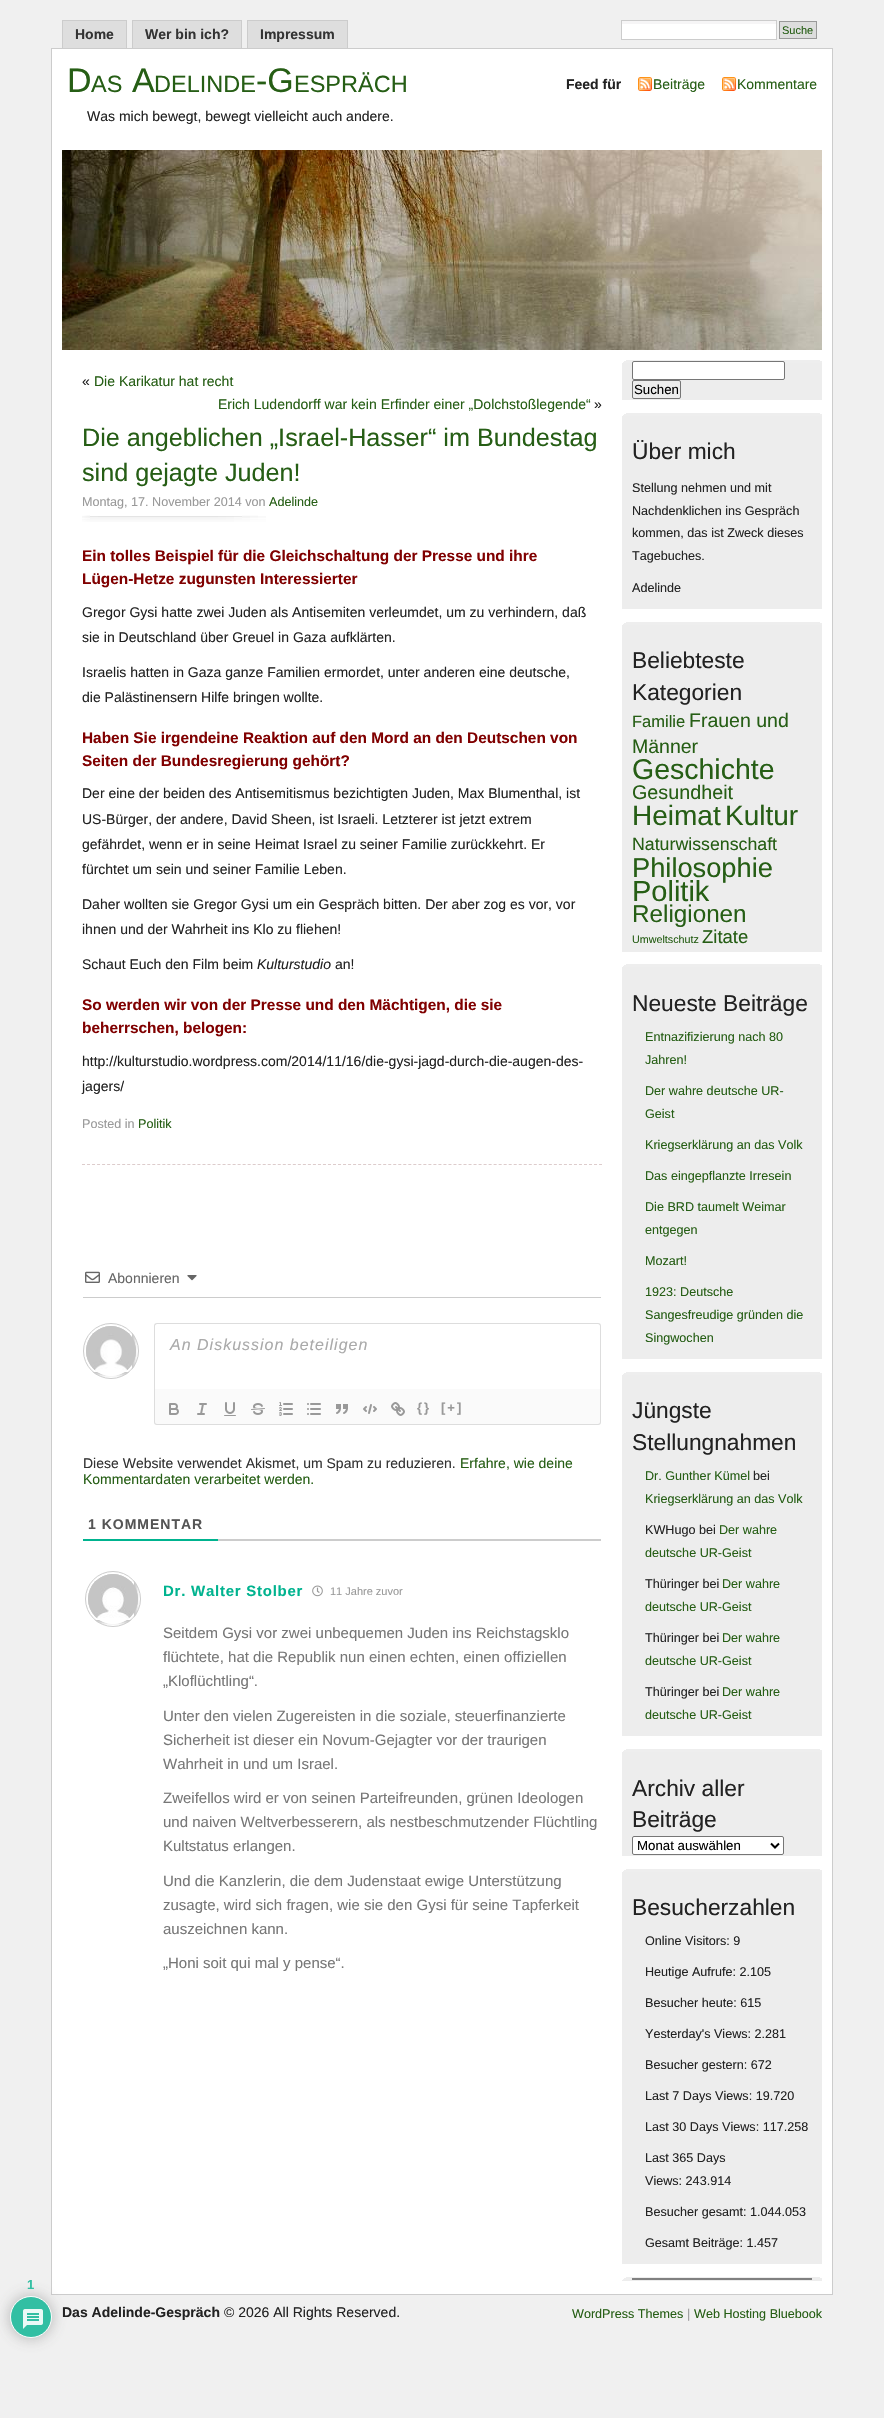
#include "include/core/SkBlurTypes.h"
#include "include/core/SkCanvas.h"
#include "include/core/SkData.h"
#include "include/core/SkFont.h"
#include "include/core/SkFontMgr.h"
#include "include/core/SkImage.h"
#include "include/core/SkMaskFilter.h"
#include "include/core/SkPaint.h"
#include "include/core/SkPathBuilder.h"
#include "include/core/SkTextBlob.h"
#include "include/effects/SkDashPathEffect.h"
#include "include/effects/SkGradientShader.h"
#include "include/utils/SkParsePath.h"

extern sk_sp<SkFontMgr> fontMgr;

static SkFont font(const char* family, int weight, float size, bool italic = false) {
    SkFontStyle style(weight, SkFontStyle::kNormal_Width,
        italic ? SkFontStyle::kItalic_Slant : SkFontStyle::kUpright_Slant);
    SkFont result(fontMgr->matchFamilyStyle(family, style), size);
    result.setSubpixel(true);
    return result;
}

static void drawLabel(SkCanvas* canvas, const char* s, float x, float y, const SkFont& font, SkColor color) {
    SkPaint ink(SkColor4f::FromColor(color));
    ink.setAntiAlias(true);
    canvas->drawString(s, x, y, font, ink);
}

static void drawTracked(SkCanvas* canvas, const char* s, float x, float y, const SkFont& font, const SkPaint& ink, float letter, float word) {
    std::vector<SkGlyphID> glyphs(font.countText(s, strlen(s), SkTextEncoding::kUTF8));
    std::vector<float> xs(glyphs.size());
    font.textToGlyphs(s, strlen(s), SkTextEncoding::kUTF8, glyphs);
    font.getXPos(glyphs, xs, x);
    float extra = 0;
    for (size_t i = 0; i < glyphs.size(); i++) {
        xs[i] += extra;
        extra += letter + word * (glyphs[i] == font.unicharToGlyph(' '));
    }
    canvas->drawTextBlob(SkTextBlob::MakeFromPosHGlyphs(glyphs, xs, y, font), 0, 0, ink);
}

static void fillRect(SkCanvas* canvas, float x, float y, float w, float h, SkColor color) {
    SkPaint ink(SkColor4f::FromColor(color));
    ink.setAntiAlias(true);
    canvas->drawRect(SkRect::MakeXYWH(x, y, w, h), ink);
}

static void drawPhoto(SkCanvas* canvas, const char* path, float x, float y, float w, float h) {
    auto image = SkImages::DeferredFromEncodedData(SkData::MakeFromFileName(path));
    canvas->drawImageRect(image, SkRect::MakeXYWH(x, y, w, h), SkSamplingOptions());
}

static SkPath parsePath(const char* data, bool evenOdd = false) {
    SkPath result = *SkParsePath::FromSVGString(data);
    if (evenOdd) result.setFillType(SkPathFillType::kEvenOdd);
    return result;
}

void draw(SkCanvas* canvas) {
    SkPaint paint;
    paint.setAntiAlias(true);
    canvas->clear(0xFFF0F0F0);
    fillRect(canvas, 63, 21, 63, 27, 0xFFDEDEDE);
    fillRect(canvas, 62, 20, 65, 1, 0xFFCCCCCC);
    fillRect(canvas, 126, 20, 1, 28, 0xFFCCCCCC);
    fillRect(canvas, 62, 20, 1, 28, 0xFFCCCCCC);
    SkFont font1 = font("Liberation Sans", 700, 14);
    drawLabel(canvas, "Home", 75, 39, font1, 0xFF333333);
    fillRect(canvas, 133, 21, 108, 27, 0xFFDEDEDE);
    fillRect(canvas, 132, 20, 110, 1, 0xFFCCCCCC);
    fillRect(canvas, 241, 20, 1, 28, 0xFFCCCCCC);
    fillRect(canvas, 132, 20, 1, 28, 0xFFCCCCCC);
    drawLabel(canvas, "Wer bin ich?", 145, 39, font1, 0xFF333333);
    fillRect(canvas, 248, 21, 99, 27, 0xFFDEDEDE);
    fillRect(canvas, 247, 20, 101, 1, 0xFFCCCCCC);
    fillRect(canvas, 347, 20, 1, 28, 0xFFCCCCCC);
    fillRect(canvas, 247, 20, 1, 28, 0xFFCCCCCC);
    drawLabel(canvas, "Impressum", 260, 39, font1, 0xFF333333);
    fillRect(canvas, 622, 24, 154, 15, 0xFFFFFFFF);
    fillRect(canvas, 621, 21, 156, 3, 0xFFF6F5F6);
    paint.setStroke(true);
    paint.setStrokeWidth(1);
    paint.setColor(0xFFCCCCCC);
    canvas->drawRect(SkRect::MakeXYWH(621.5f, 20.5f, 155, 19), paint);
    paint.setStroke(false);
    paint.setColor(0xFFDDDDDD);
    canvas->drawRect(SkRect::MakeXYWH(779.5f, 21.5f, 37, 17), paint);
    paint.setStroke(true);
    paint.setColor(0xFF999999);
    canvas->drawRect(SkRect::MakeXYWH(779.5f, 21.5f, 37, 17), paint);
    SkFont font2 = font("Liberation Sans", 400, 11);
    drawLabel(canvas, "Suche", 782, 34, font2, 0xFF265E15);
    paint.setStroke(false);
    paint.setColor(0xFFFFFFFF);
    canvas->drawRect(SkRect::MakeXYWH(51.5f, 48.5f, 781, 2246), paint);
    paint.setStroke(true);
    paint.setColor(0xFFCCCCCC);
    canvas->drawRect(SkRect::MakeXYWH(51.5f, 48.5f, 781, 2246), paint);
    SkFont font3 = font("Liberation Sans", 400, 34);
    drawLabel(canvas, "D", 67, 92, font3, 0xFF265E15);
    SkFont font4 = font("Liberation Sans", 400, 23.5f);
    drawLabel(canvas, "AS", 91, 92, font4, 0xFF265E15);
    drawLabel(canvas, "A", 132, 92, font3, 0xFF265E15);
    drawLabel(canvas, "DELINDE", 154, 92, font4, 0xFF265E15);
    drawLabel(canvas, "-G", 256, 92, font3, 0xFF265E15);
    drawLabel(canvas, "ESPRÄCH", 294, 92, font4, 0xFF265E15);
    SkFont font5 = font("Liberation Sans", 400, 14);
    drawLabel(canvas, "Was mich bewegt, bewegt vielleicht auch andere.", 87, 121, font5, 0xFF222222);
    drawLabel(canvas, "Feed für", 566, 89, font1, 0xFF222222);
    drawPhoto(canvas, "assets/img1.png", 638, 77, 14, 14);
    drawLabel(canvas, "Beiträge", 653, 89, font5, 0xFF265E15);
    drawPhoto(canvas, "assets/img1.png", 722, 77, 14, 14);
    drawLabel(canvas, "Kommentare", 737, 89, font5, 0xFF265E15);
    drawPhoto(canvas, "assets/img2.png", 62, 150, 760, 200);
    drawLabel(canvas, "«", 82, 386, font5, 0xFF222222);
    drawLabel(canvas, "Die Karikatur hat recht", 94, 386, font5, 0xFF265E15);
    drawLabel(canvas, "Erich Ludendorff war kein Erfinder einer „Dolchstoßlegende“", 218, 409, font5, 0xFF265E15);
    drawLabel(canvas, "»", 594, 409, font5, 0xFF222222);
    paint.setColor(0xFFDDCCCC);
    paint.setPathEffect(SkDashPathEffect::Make({{3, 2.02f}}, 0));
    canvas->drawPath(parsePath("M82 1164.5H602"), paint);
    paint.setPathEffect(nullptr);
    SkFont font6 = font("Liberation Sans", 400, 25.2f);
    drawLabel(canvas, "Die angeblichen „Israel-Hasser“ im Bundestag", 82, 446, font6, 0xFF265E15);
    drawLabel(canvas, "sind gejagte Juden!", 82, 481, font6, 0xFF265E15);
    drawPhoto(canvas, "assets/img3.png", 82, 515, 184, 7);
    SkFont font7 = font("Liberation Sans", 400, 12.6f);
    drawLabel(canvas, "Montag, 17. November 2014 von", 82, 506, font7, 0xFF999999);
    drawLabel(canvas, "Adelinde", 269, 506, font7, 0xFF265E15);
    SkFont font8 = font("Liberation Sans", 700, 15.4f);
    drawLabel(canvas, "Ein tolles Beispiel für die Gleichschaltung der Presse und ihre", 82, 561, font8, 0xFF800000);
    drawLabel(canvas, "Lügen-Hetze zugunsten Interessierter", 82, 584, font8, 0xFF800000);
    drawLabel(canvas, "Gregor Gysi hatte zwei Juden als Antisemiten verleumdet, um zu verhindern, daß", 82, 617, font5, 0xFF222222);
    drawLabel(canvas, "sie in Deutschland über Greuel in Gaza aufklärten.", 82, 642, font5, 0xFF222222);
    drawLabel(canvas, "Israelis hatten in Gaza ganze Familien ermordet, unter anderen eine deutsche,", 82, 677, font5, 0xFF222222);
    drawLabel(canvas, "die Palästinensern Hilfe bringen wollte.", 82, 702, font5, 0xFF222222);
    drawLabel(canvas, "Haben Sie irgendeine Reaktion auf den Mord an den Deutschen von", 82, 743, font8, 0xFF800000);
    drawLabel(canvas, "Seiten der Bundesregierung gehört?", 82, 766, font8, 0xFF800000);
    drawLabel(canvas, "Der eine der beiden des Antisemitismus bezichtigten Juden, Max Blumenthal, ist", 82, 798, font5, 0xFF222222);
    drawLabel(canvas, "US-Bürger, der andere, David Sheen, ist Israeli. Letzterer ist jetzt extrem", 82, 824, font5, 0xFF222222);
    drawLabel(canvas, "gefährdet, wenn er in seine Heimat Israel zu seiner Familie zurückkehrt. Er", 82, 849, font5, 0xFF222222);
    drawLabel(canvas, "fürchtet um sein und seiner Familie Leben.", 82, 874, font5, 0xFF222222);
    drawLabel(canvas, "Daher wollten sie Gregor Gysi um ein Gespräch bitten. Der aber zog es vor, vor", 82, 909, font5, 0xFF222222);
    drawLabel(canvas, "ihnen und der Wahrheit ins Klo zu fliehen!", 82, 934, font5, 0xFF222222);
    drawLabel(canvas, "Schaut Euch den Film beim", 82, 969, font5, 0xFF222222);
    SkFont font9 = font("Liberation Sans", 400, 14, true);
    drawLabel(canvas, "Kulturstudio", 257, 969, font9, 0xFF222222);
    drawLabel(canvas, "an!", 335, 969, font5, 0xFF222222);
    drawLabel(canvas, "So werden wir von der Presse und den Mächtigen, die sie", 82, 1010, font8, 0xFF800000);
    drawLabel(canvas, "beherrschen, belogen:", 82, 1033, font8, 0xFF800000);
    drawLabel(canvas, "http://kulturstudio.wordpress.com/2014/11/16/die-gysi-jagd-durch-die-augen-des-", 82, 1066, font5, 0xFF222222);
    drawLabel(canvas, "jagers/", 82, 1091, font5, 0xFF222222);
    drawLabel(canvas, "Posted in", 82, 1128, font7, 0xFF999999);
    drawLabel(canvas, "Politik", 138, 1128, font7, 0xFF265E15);
    fillRect(canvas, 83, 1297, 518, 1, 0xFFCCCCCC);
    drawPhoto(canvas, "assets/img4.png", 85, 1271, 15, 12);
    drawLabel(canvas, "Abonnieren", 108, 1283, font5, 0xFF666666);
    drawPhoto(canvas, "assets/img5.png", 187, 1275, 10, 6);
    drawPhoto(canvas, "assets/img6.png", 86, 1326, 51, 51);
    paint.setColor(0xFFCCCCCC);
    canvas->drawCircle(111, 1351, 27.5f, paint);
    drawPhoto(canvas, "assets/img7.png", 86, 1326, 50, 50);
    paint.setStroke(false);
    paint.setColor(0xFFDDDDDD);
    canvas->drawPath(parsePath("M157 1323H598C600 1323 601 1324 601 1326V1389H154V1326C154 1324 155 1323 157 1323ZM157 1324H598C599 1324 600 1325 600 1326V1389H155V1326C155 1325 156 1324 157 1324Z", true), paint);
    SkFont font10 = font("Liberation Sans", 400, 16, true);
    paint.setColor(0xFFAAAAAA);
    drawTracked(canvas, "An Diskussion beteiligen", 170, 1350, font10, paint, 1, 0);
    paint.setColor(0xFFFAFAFA);
    canvas->drawPath(parsePath("M154 1389H601V1422C601 1423.5 599.5 1425 598 1425H157C155.5 1425 154 1423.5 154 1422Z"), paint);
    paint.setColor(0xFFDDDDDD);
    canvas->drawPath(parsePath("M154 1389H601V1422C601 1424 600 1425 598 1425H157C155 1425 154 1424 154 1422ZM155 1389H600V1422C600 1423 599 1424 598 1424H157C156 1424 155 1423 155 1422Z", true), paint);
    drawPhoto(canvas, "assets/img8.png", 169, 1403, 10, 12);
    drawPhoto(canvas, "assets/img9.png", 197, 1403, 10, 12);
    drawPhoto(canvas, "assets/img10.png", 224, 1402, 12, 14);
    drawPhoto(canvas, "assets/img11.png", 251, 1403, 14, 12);
    drawPhoto(canvas, "assets/img12.png", 279, 1402, 14, 14);
    drawPhoto(canvas, "assets/img13.png", 307, 1403, 14, 12);
    drawPhoto(canvas, "assets/img14.png", 336, 1404, 12, 10);
    drawPhoto(canvas, "assets/img15.png", 363, 1404, 14, 10);
    drawPhoto(canvas, "assets/img16.png", 391, 1402, 14, 14);
    SkFont font11 = font("Liberation Sans", 700, 13);
    paint.setColor(0xFF999999);
    drawTracked(canvas, "{}", 417, 1412, font11, paint, 2, 0);
    drawTracked(canvas, "[+]", 441, 1412, font11, paint, 2, 0);
    drawLabel(canvas, "Diese Website verwendet Akismet, um Spam zu reduzieren.", 83, 1468, font5, 0xFF333333);
    drawLabel(canvas, "Erfahre, wie deine", 460, 1468, font5, 0xFF265E15);
    drawLabel(canvas, "Kommentardaten verarbeitet werden.", 83, 1484, font5, 0xFF265E15);
    fillRect(canvas, 218, 1539, 383, 2, 0xFFCCCCCC);
    fillRect(canvas, 83, 1539, 135, 2, 0xFF00B38F);
    paint.setColor(0xFF555555);
    drawTracked(canvas, "1 KOMMENTAR", 88, 1529, font1, paint, 1, 0);
    drawPhoto(canvas, "assets/img17.png", 88, 1574, 51, 51);
    paint.setStroke(true);
    paint.setColor(0xFFCCCCCC);
    canvas->drawCircle(113, 1599, 27.5f, paint);
    drawPhoto(canvas, "assets/img18.png", 88, 1574, 50, 50);
    SkFont font12 = font("Liberation Sans", 700, 15);
    paint.setStroke(false);
    paint.setColor(0xFF00B38F);
    drawTracked(canvas, "Dr. Walter Stolber", 163, 1596, font12, paint, 0.75f, 0);
    drawPhoto(canvas, "assets/img19.png", 312, 1585, 11, 12);
    drawLabel(canvas, "11 Jahre zuvor", 330, 1595, font2, 0xFF999999);
    SkFont font13 = font("Liberation Sans", 400, 15);
    drawLabel(canvas, "Seitdem Gysi vor zwei unbequemen Juden ins Reichstagsklo", 163, 1638, font13, 0xFF777777);
    drawLabel(canvas, "flüchtete, hat die Republik nun einen echten, einen offiziellen", 163, 1662, font13, 0xFF777777);
    drawLabel(canvas, "„Kloflüchtling“.", 163, 1686, font13, 0xFF777777);
    drawLabel(canvas, "Unter den vielen Zugereisten in die soziale, steuerfinanzierte", 163, 1721, font13, 0xFF777777);
    drawLabel(canvas, "Sicherheit ist dieser ein Novum-Gejagter vor der traurigen", 163, 1745, font13, 0xFF777777);
    drawLabel(canvas, "Wahrheit in und um Israel.", 163, 1769, font13, 0xFF777777);
    drawLabel(canvas, "Zweifellos wird er von seinen Parteifreunden, grünen Ideologen", 163, 1803, font13, 0xFF777777);
    drawLabel(canvas, "und naiven Weltverbesserern, als nestbeschmutzender Flüchtling", 163, 1827, font13, 0xFF777777);
    drawLabel(canvas, "Kultstatus erlangen.", 163, 1851, font13, 0xFF777777);
    drawLabel(canvas, "Und die Kanzlerin, die dem Judenstaat ewige Unterstützung", 163, 1886, font13, 0xFF777777);
    drawLabel(canvas, "zusagte, wird sich fragen, wie sie den Gysi für seine Tapferkeit", 163, 1910, font13, 0xFF777777);
    drawLabel(canvas, "auszeichnen kann.", 163, 1934, font13, 0xFF777777);
    drawLabel(canvas, "„Honi soit qui mal y pense“.", 163, 1968, font13, 0xFF777777);
    fillRect(canvas, 622, 363, 200, 37, 0xFFEDEDED);
    drawPhoto(canvas, "assets/img20.png", 622, 360, 200, 3);
    paint.setColor(0xFFFFFFFF);
    canvas->drawRoundRect(SkRect::MakeXYWH(632.5f, 361.5f, 152, 18), 1.5f, 1.5f, paint);
    paint.setStroke(true);
    paint.setColor(0xFF767676);
    canvas->drawRoundRect(SkRect::MakeXYWH(632.5f, 361.5f, 152, 18), 1.5f, 1.5f, paint);
    canvas->drawRoundRect(SkRect::MakeXYWH(632.5f, 380.5f, 48, 18), 1.5f, 1.5f, paint);
    SkFont font14 = font("Liberation Sans", 400, 13.25f);
    drawLabel(canvas, "Suchen", 634, 394, font14, 0xFF000000);
    fillRect(canvas, 622, 416, 200, 193, 0xFFEDEDED);
    drawPhoto(canvas, "assets/img20.png", 622, 413, 200, 3);
    SkFont font15 = font("Liberation Sans", 400, 22.75f);
    drawLabel(canvas, "Über mich", 632, 459, font15, 0xFF222222);
    drawLabel(canvas, "Stellung nehmen und mit", 632, 492, font7, 0xFF222222);
    drawLabel(canvas, "Nachdenklichen ins Gespräch", 632, 515, font7, 0xFF222222);
    drawLabel(canvas, "kommen, das ist Zweck dieses", 632, 537, font7, 0xFF222222);
    drawLabel(canvas, "Tagebuches.", 632, 560, font7, 0xFF222222);
    drawLabel(canvas, "Adelinde", 632, 592, font7, 0xFF222222);
    fillRect(canvas, 622, 625, 200, 327, 0xFFEDEDED);
    drawPhoto(canvas, "assets/img20.png", 622, 622, 200, 3);
    drawLabel(canvas, "Beliebteste", 632, 668, font15, 0xFF222222);
    drawLabel(canvas, "Kategorien", 632, 700, font15, 0xFF222222);
    SkFont font16 = font("Liberation Sans", 400, 16.5f);
    drawLabel(canvas, "Familie", 632, 727, font16, 0xFF265E15);
    SkFont font17 = font("Liberation Sans", 400, 19.5f);
    drawLabel(canvas, "Frauen und", 689, 727, font17, 0xFF265E15);
    drawLabel(canvas, "Männer", 632, 753, font17, 0xFF265E15);
    SkFont font18 = font("Liberation Sans", 400, 28.5f);
    drawLabel(canvas, "Geschichte", 632, 779, font18, 0xFF265E15);
    SkFont font19 = font("Liberation Sans", 400, 19.75f);
    drawLabel(canvas, "Gesundheit", 632, 799, font19, 0xFF265E15);
    SkFont font20 = font("Liberation Sans", 400, 28);
    drawLabel(canvas, "Heimat", 632, 825, font20, 0xFF265E15);
    drawLabel(canvas, "Kultur", 725, 825, font20, 0xFF265E15);
    SkFont font21 = font("Liberation Sans", 400, 17.75f);
    drawLabel(canvas, "Naturwissenschaft", 632, 850, font21, 0xFF265E15);
    SkFont font22 = font("Liberation Sans", 400, 27.25f);
    drawLabel(canvas, "Philosophie", 632, 877, font22, 0xFF265E15);
    SkFont font23 = font("Liberation Sans", 400, 29);
    drawLabel(canvas, "Politik", 632, 901, font23, 0xFF265E15);
    SkFont font24 = font("Liberation Sans", 400, 24.25f);
    drawLabel(canvas, "Religionen", 632, 922, font24, 0xFF265E15);
    SkFont font25 = font("Liberation Sans", 400, 10.75f);
    drawLabel(canvas, "Umweltschutz", 632, 943, font25, 0xFF265E15);
    SkFont font26 = font("Liberation Sans", 400, 18.5f);
    drawLabel(canvas, "Zitate", 702, 943, font26, 0xFF265E15);
    fillRect(canvas, 622, 967, 200, 392, 0xFFEDEDED);
    drawPhoto(canvas, "assets/img20.png", 622, 964, 200, 3);
    drawLabel(canvas, "Neueste Beiträge", 632, 1011, font15, 0xFF222222);
    drawLabel(canvas, "Entnazifizierung nach 80", 645, 1041, font7, 0xFF265E15);
    drawLabel(canvas, "Jahren!", 645, 1064, font7, 0xFF265E15);
    drawLabel(canvas, "Der wahre deutsche UR-", 645, 1095, font7, 0xFF265E15);
    drawLabel(canvas, "Geist", 645, 1118, font7, 0xFF265E15);
    drawLabel(canvas, "Kriegserklärung an das Volk", 645, 1149, font7, 0xFF265E15);
    drawLabel(canvas, "Das eingepflanzte Irresein", 645, 1180, font7, 0xFF265E15);
    drawLabel(canvas, "Die BRD taumelt Weimar", 645, 1211, font7, 0xFF265E15);
    drawLabel(canvas, "entgegen", 645, 1234, font7, 0xFF265E15);
    drawLabel(canvas, "Mozart!", 645, 1265, font7, 0xFF265E15);
    drawLabel(canvas, "1923: Deutsche", 645, 1296, font7, 0xFF265E15);
    drawLabel(canvas, "Sangesfreudige gründen die", 645, 1319, font7, 0xFF265E15);
    drawLabel(canvas, "Singwochen", 645, 1342, font7, 0xFF265E15);
    fillRect(canvas, 622, 1375, 200, 361, 0xFFEDEDED);
    drawPhoto(canvas, "assets/img20.png", 622, 1372, 200, 3);
    drawLabel(canvas, "Jüngste", 632, 1418, font15, 0xFF222222);
    drawLabel(canvas, "Stellungnahmen", 632, 1450, font15, 0xFF222222);
    drawLabel(canvas, "Dr. Gunther Kümel", 645, 1480, font7, 0xFF265E15);
    drawLabel(canvas, "bei", 753, 1480, font7, 0xFF222222);
    drawLabel(canvas, "Kriegserklärung an das Volk", 645, 1503, font7, 0xFF265E15);
    drawLabel(canvas, "KWHugo bei", 645, 1534, font7, 0xFF222222);
    drawLabel(canvas, "Der wahre", 719, 1534, font7, 0xFF265E15);
    drawLabel(canvas, "deutsche UR-Geist", 645, 1557, font7, 0xFF265E15);
    drawLabel(canvas, "Thüringer bei", 645, 1588, font7, 0xFF222222);
    drawLabel(canvas, "Der wahre", 722, 1588, font7, 0xFF265E15);
    drawLabel(canvas, "deutsche UR-Geist", 645, 1611, font7, 0xFF265E15);
    drawLabel(canvas, "Thüringer bei", 645, 1642, font7, 0xFF222222);
    drawLabel(canvas, "Der wahre", 722, 1642, font7, 0xFF265E15);
    drawLabel(canvas, "deutsche UR-Geist", 645, 1665, font7, 0xFF265E15);
    drawLabel(canvas, "Thüringer bei", 645, 1696, font7, 0xFF222222);
    drawLabel(canvas, "Der wahre", 722, 1696, font7, 0xFF265E15);
    drawLabel(canvas, "deutsche UR-Geist", 645, 1719, font7, 0xFF265E15);
    fillRect(canvas, 622, 1752, 200, 104, 0xFFEDEDED);
    drawPhoto(canvas, "assets/img20.png", 622, 1749, 200, 3);
    drawLabel(canvas, "Archiv aller", 632, 1796, font15, 0xFF222222);
    drawLabel(canvas, "Beiträge", 632, 1827, font15, 0xFF222222);
    paint.setStroke(false);
    paint.setColor(0xFFFFFFFF);
    canvas->drawRoundRect(SkRect::MakeXYWH(632.5f, 1836.5f, 151, 18), 1.5f, 1.5f, paint);
    paint.setStroke(true);
    paint.setColor(0xFF767676);
    canvas->drawRoundRect(SkRect::MakeXYWH(632.5f, 1836.5f, 151, 18), 1.5f, 1.5f, paint);
    paint.setStrokeWidth(2);
    paint.setColor(0xFF000000);
    canvas->drawPath(parsePath("M771 1843.5L775 1847.5L779 1843.5"), paint);
    drawLabel(canvas, "Monat auswählen", 637, 1850, font14, 0xFF000000);
    fillRect(canvas, 622, 1872, 200, 392, 0xFFEDEDED);
    drawPhoto(canvas, "assets/img20.png", 622, 1869, 200, 3);
    drawLabel(canvas, "Besucherzahlen", 632, 1915, font15, 0xFF222222);
    drawLabel(canvas, "Online Visitors: 9", 645, 1945, font7, 0xFF222222);
    drawLabel(canvas, "Heutige Aufrufe: 2.105", 645, 1976, font7, 0xFF222222);
    drawLabel(canvas, "Besucher heute: 615", 645, 2007, font7, 0xFF222222);
    drawLabel(canvas, "Yesterday's Views: 2.281", 645, 2038, font7, 0xFF222222);
    drawLabel(canvas, "Besucher gestern: 672", 645, 2069, font7, 0xFF222222);
    drawLabel(canvas, "Last 7 Days Views: 19.720", 645, 2100, font7, 0xFF222222);
    drawLabel(canvas, "Last 30 Days Views: 117.258", 645, 2131, font7, 0xFF222222);
    drawLabel(canvas, "Last 365 Days", 645, 2162, font7, 0xFF222222);
    drawLabel(canvas, "Views: 243.914", 645, 2185, font7, 0xFF222222);
    drawLabel(canvas, "Besucher gesamt: 1.044.053", 645, 2216, font7, 0xFF222222);
    drawLabel(canvas, "Gesamt Beiträge: 1.457", 645, 2247, font7, 0xFF222222);
    fillRect(canvas, 622, 2280, 200, 1, 0xFFEDEDED);
    drawPhoto(canvas, "assets/img20.png", 622, 2277, 200, 3);
    fillRect(canvas, 632, 2278, 180, 2, 0xFF808080);
    paint.setStroke(false);
    paint.setColor(0xE6AAAAAA);
    paint.setMaskFilter(SkMaskFilter::MakeBlur(kNormal_SkBlurStyle, 7.5f));
    canvas->drawRoundRect(SkRect::MakeXYWH(10, 2296, 42, 42), 21, 21, paint);
    paint.setMaskFilter(nullptr);
    paint.setColor(0xFF32BFA3);
    canvas->drawCircle(31, 2317, 20.5f, paint);
    paint.setStroke(true);
    paint.setStrokeWidth(1);
    paint.setColor(0xFFFEFEFE);
    canvas->drawCircle(31, 2317, 20.5f, paint);
    drawPhoto(canvas, "assets/img21.png", 23, 2309, 20, 20);
    drawLabel(canvas, "1", 27, 2289, font11, 0xFF32BFA3);
    drawLabel(canvas, "Das Adelinde-Gespräch", 62, 2317, font1, 0xFF222222);
    drawLabel(canvas, "© 2026 All Rights Reserved.", 224, 2317, font5, 0xFF222222);
    drawLabel(canvas, "WordPress Themes", 572, 2318, font7, 0xFF265E15);
    drawLabel(canvas, "|", 687, 2318, font7, 0xFF999999);
    drawLabel(canvas, "Web Hosting Bluebook", 694, 2318, font7, 0xFF265E15);
}
